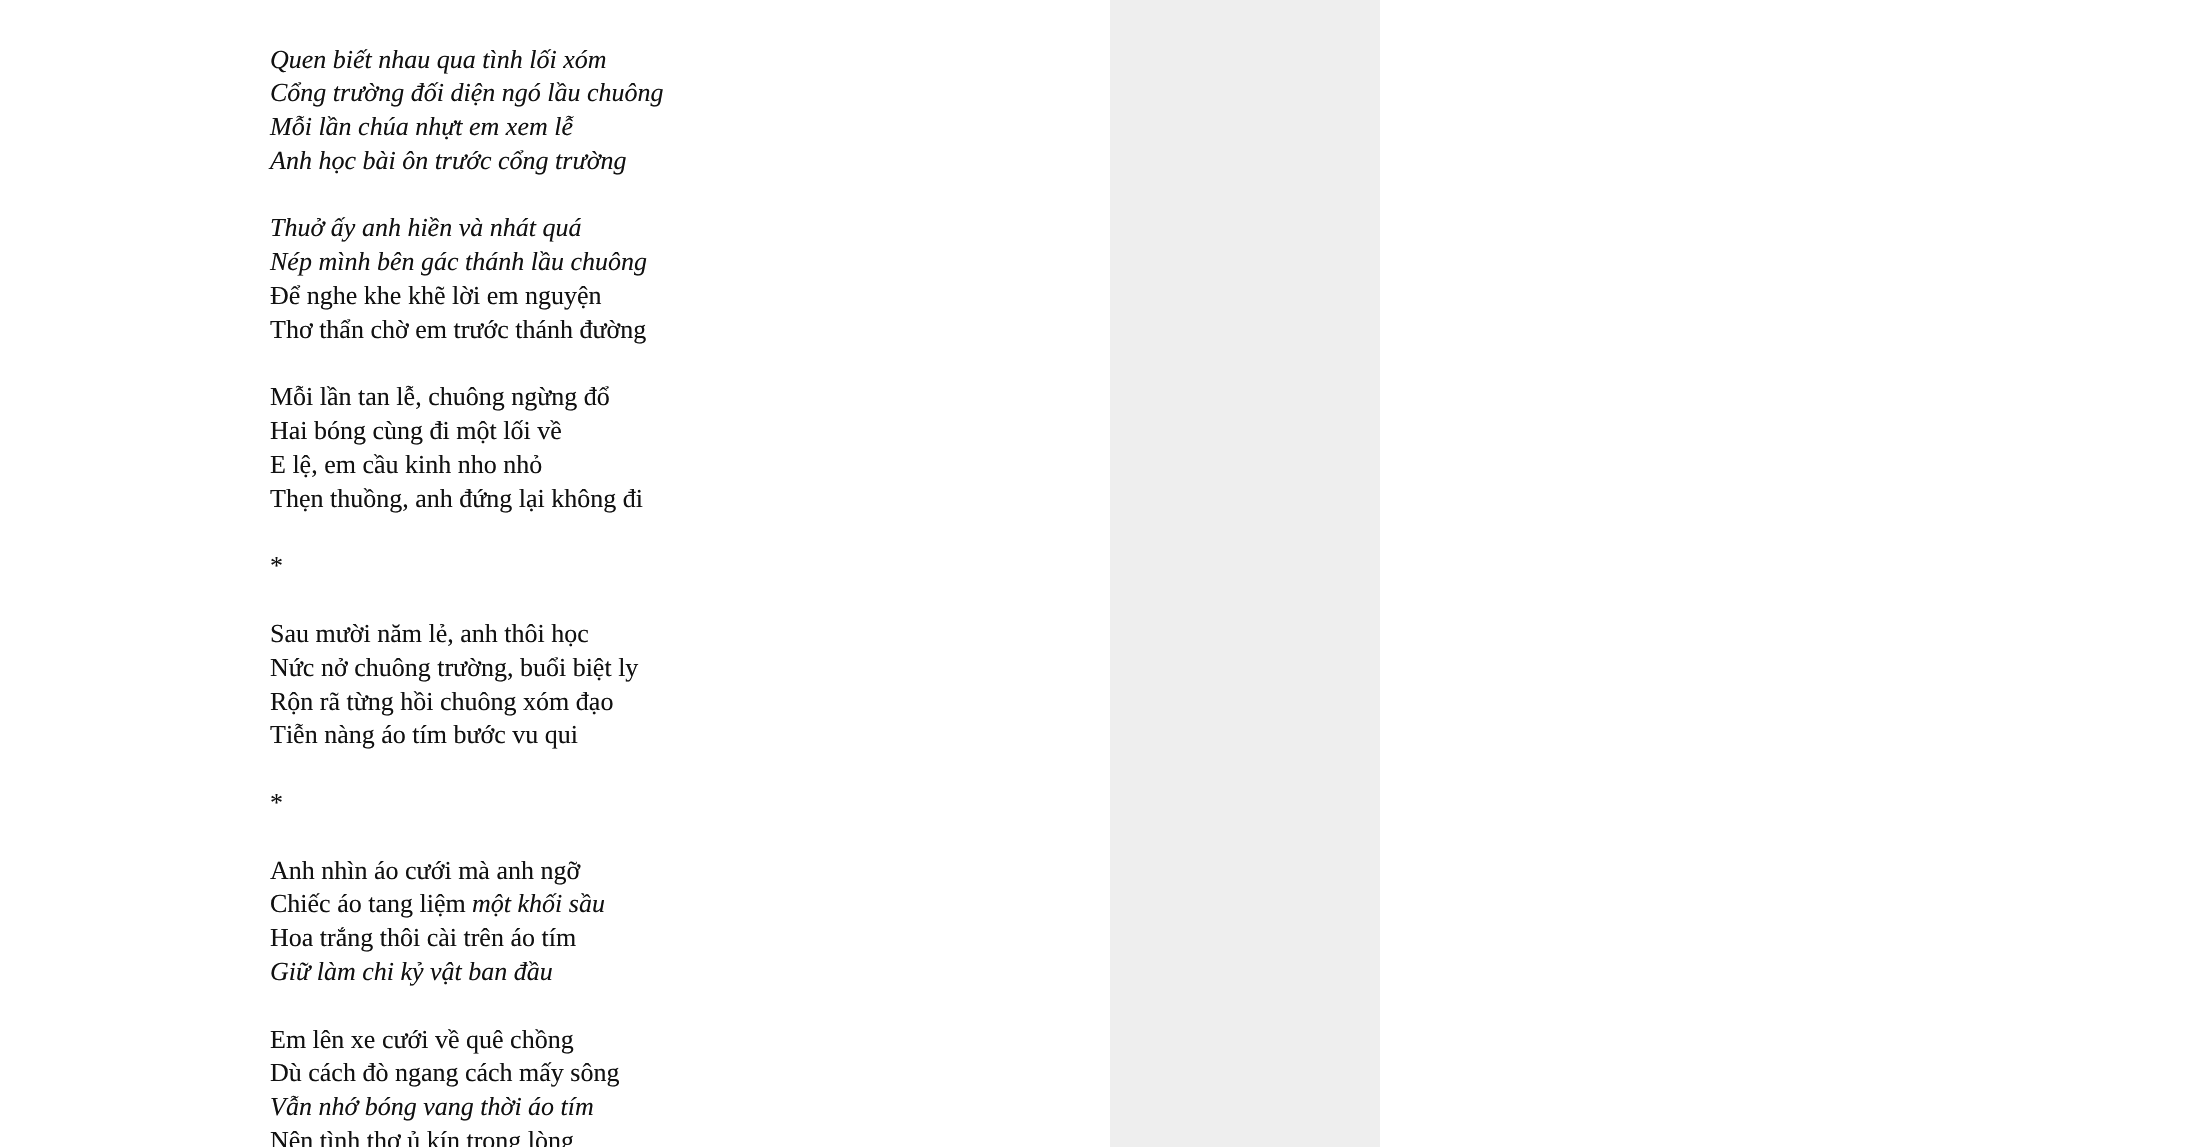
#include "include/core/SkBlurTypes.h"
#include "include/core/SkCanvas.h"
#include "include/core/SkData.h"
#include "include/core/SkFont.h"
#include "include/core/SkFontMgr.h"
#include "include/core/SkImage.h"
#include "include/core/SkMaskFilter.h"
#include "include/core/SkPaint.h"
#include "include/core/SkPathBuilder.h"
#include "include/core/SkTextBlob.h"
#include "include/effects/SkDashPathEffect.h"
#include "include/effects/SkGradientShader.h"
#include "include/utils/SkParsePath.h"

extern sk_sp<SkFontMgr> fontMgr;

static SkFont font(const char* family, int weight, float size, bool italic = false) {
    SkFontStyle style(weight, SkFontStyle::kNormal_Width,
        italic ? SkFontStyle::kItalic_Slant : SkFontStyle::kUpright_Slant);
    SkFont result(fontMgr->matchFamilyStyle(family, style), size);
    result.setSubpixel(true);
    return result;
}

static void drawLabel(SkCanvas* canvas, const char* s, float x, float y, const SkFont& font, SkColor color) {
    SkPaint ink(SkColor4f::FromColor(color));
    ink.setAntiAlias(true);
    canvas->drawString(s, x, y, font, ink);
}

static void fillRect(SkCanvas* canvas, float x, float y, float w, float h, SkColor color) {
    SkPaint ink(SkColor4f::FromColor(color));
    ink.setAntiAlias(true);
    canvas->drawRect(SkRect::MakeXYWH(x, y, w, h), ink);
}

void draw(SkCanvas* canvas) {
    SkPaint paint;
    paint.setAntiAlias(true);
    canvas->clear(0xFFFFFFFF);
    SkFont font1 = font("Liberation Serif", 400, 26, true);
    drawLabel(canvas, "Quen biết nhau qua tình lối xóm", 270, 68, font1, 0xFF111111);
    drawLabel(canvas, "Cổng trường đối diện ngó lầu chuông", 270, 101, font1, 0xFF111111);
    drawLabel(canvas, "Mỗi lần chúa nhựt em xem lễ", 270, 135, font1, 0xFF111111);
    drawLabel(canvas, "Anh học bài ôn trước cổng trường", 270, 169, font1, 0xFF111111);
    drawLabel(canvas, "Thuở ấy anh hiền và nhát quá", 270, 236, font1, 0xFF111111);
    drawLabel(canvas, "Nép mình bên gác thánh lầu chuông", 270, 270, font1, 0xFF111111);
    SkFont font2 = font("Liberation Serif", 400, 26);
    drawLabel(canvas, "Để nghe khe khẽ lời em nguyện", 270, 304, font2, 0xFF111111);
    drawLabel(canvas, "Thơ thẩn chờ em trước thánh đường", 270, 338, font2, 0xFF111111);
    drawLabel(canvas, "Mỗi lần tan lễ, chuông ngừng đổ", 270, 405, font2, 0xFF111111);
    drawLabel(canvas, "Hai bóng cùng đi một lối về", 270, 439, font2, 0xFF111111);
    drawLabel(canvas, "E lệ, em cầu kinh nho nhỏ", 270, 473, font2, 0xFF111111);
    drawLabel(canvas, "Thẹn thuồng, anh đứng lại không đi", 270, 507, font2, 0xFF111111);
    drawLabel(canvas, "*", 270, 574, font2, 0xFF111111);
    drawLabel(canvas, "Sau mười năm lẻ, anh thôi học", 270, 642, font2, 0xFF111111);
    drawLabel(canvas, "Nức nở chuông trường, buổi biệt ly", 270, 676, font2, 0xFF111111);
    drawLabel(canvas, "Rộn rã từng hồi chuông xóm đạo", 270, 710, font2, 0xFF111111);
    drawLabel(canvas, "Tiễn nàng áo tím bước vu qui", 270, 743, font2, 0xFF111111);
    drawLabel(canvas, "*", 270, 811, font2, 0xFF111111);
    drawLabel(canvas, "Anh nhìn áo cưới mà anh ngỡ", 270, 879, font2, 0xFF111111);
    drawLabel(canvas, "Chiếc áo tang liệm", 270, 912, font2, 0xFF111111);
    drawLabel(canvas, "một khối sầu", 472, 912, font1, 0xFF111111);
    drawLabel(canvas, "Hoa trắng thôi cài trên áo tím", 270, 946, font2, 0xFF111111);
    drawLabel(canvas, "Giữ làm chi kỷ vật ban đầu", 270, 980, font1, 0xFF111111);
    drawLabel(canvas, "Em lên xe cưới về quê chồng", 270, 1048, font2, 0xFF111111);
    drawLabel(canvas, "Dù cách đò ngang cách mấy sông", 270, 1081, font2, 0xFF111111);
    drawLabel(canvas, "Vẫn nhớ bóng vang thời áo tím", 270, 1115, font1, 0xFF111111);
    drawLabel(canvas, "Nên tình thơ ủ kín trong lòng", 270, 1149, font2, 0xFF111111);
    fillRect(canvas, 1110, 0, 270, 1147, 0xFFEEEEEE);
}
